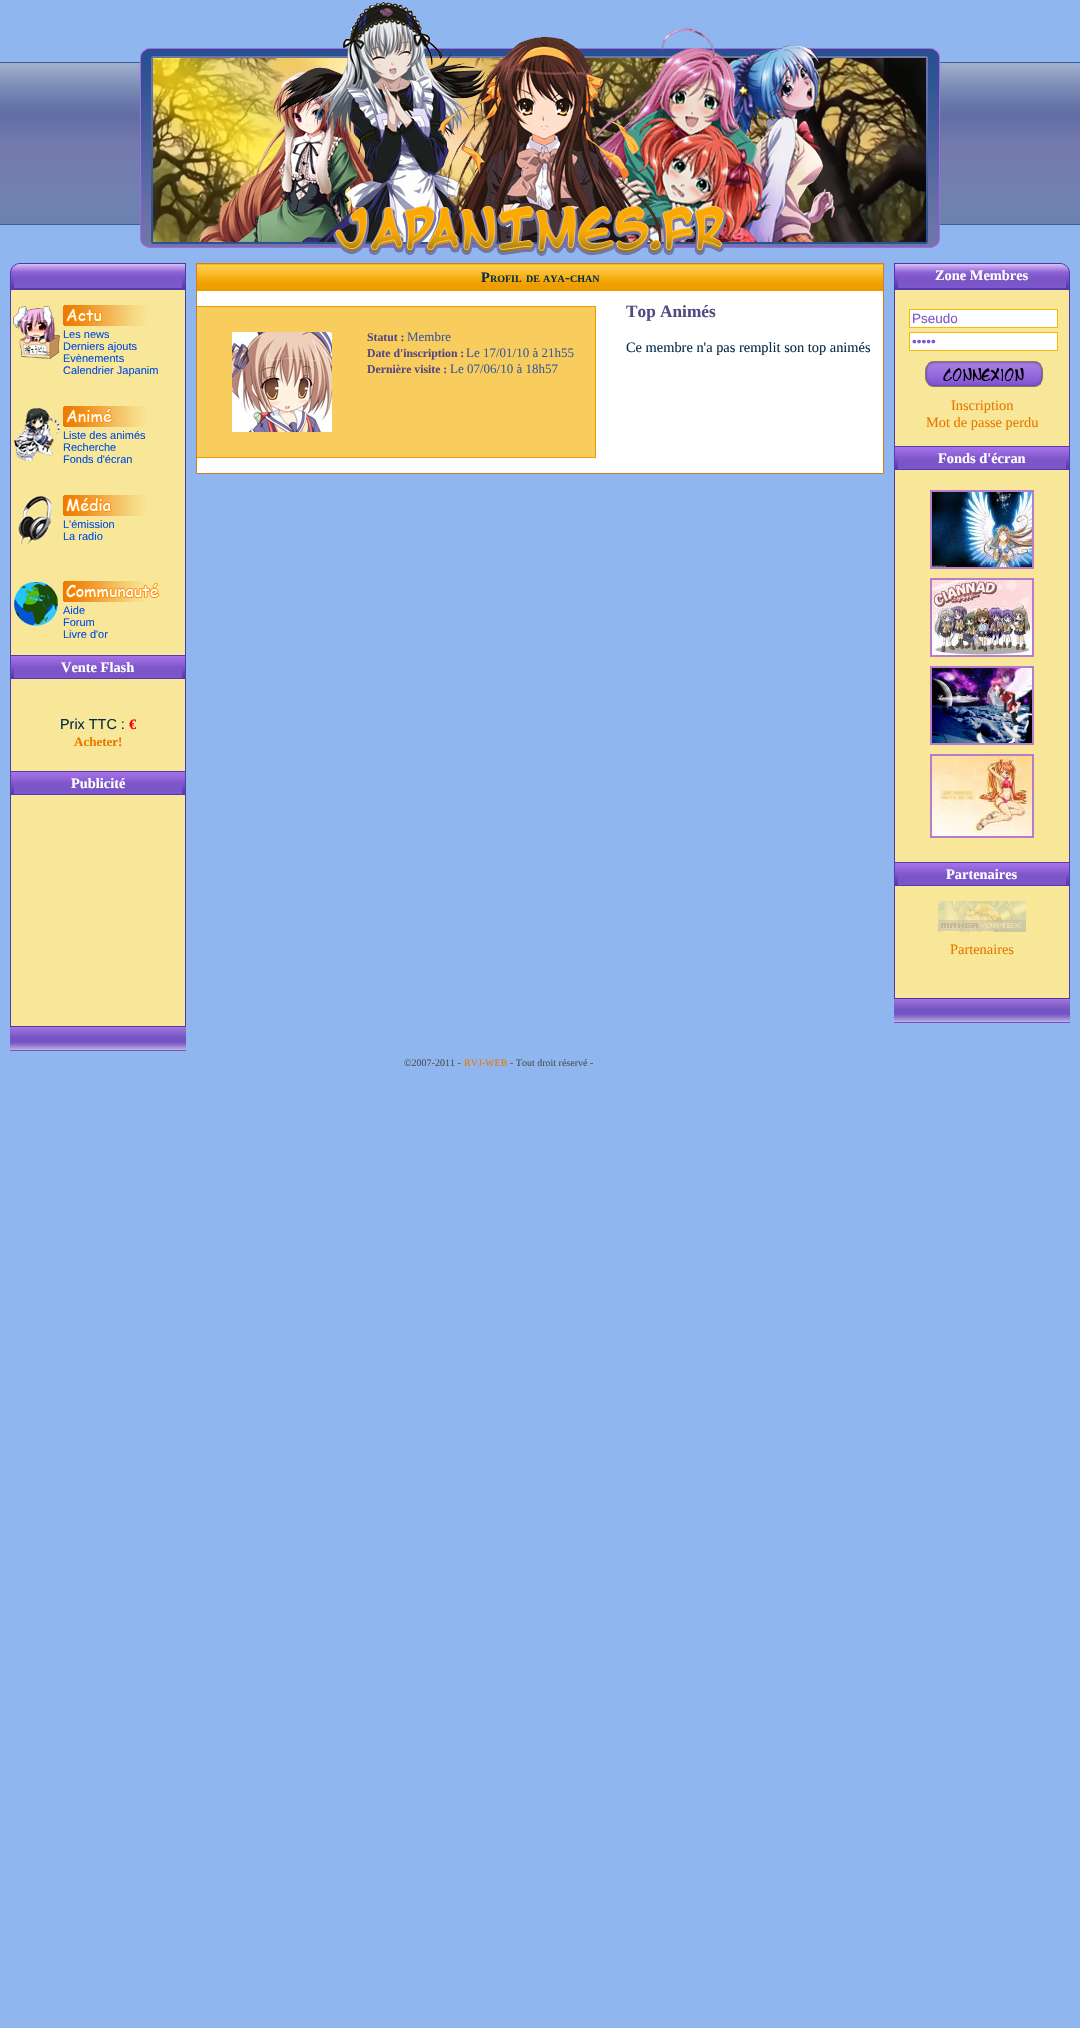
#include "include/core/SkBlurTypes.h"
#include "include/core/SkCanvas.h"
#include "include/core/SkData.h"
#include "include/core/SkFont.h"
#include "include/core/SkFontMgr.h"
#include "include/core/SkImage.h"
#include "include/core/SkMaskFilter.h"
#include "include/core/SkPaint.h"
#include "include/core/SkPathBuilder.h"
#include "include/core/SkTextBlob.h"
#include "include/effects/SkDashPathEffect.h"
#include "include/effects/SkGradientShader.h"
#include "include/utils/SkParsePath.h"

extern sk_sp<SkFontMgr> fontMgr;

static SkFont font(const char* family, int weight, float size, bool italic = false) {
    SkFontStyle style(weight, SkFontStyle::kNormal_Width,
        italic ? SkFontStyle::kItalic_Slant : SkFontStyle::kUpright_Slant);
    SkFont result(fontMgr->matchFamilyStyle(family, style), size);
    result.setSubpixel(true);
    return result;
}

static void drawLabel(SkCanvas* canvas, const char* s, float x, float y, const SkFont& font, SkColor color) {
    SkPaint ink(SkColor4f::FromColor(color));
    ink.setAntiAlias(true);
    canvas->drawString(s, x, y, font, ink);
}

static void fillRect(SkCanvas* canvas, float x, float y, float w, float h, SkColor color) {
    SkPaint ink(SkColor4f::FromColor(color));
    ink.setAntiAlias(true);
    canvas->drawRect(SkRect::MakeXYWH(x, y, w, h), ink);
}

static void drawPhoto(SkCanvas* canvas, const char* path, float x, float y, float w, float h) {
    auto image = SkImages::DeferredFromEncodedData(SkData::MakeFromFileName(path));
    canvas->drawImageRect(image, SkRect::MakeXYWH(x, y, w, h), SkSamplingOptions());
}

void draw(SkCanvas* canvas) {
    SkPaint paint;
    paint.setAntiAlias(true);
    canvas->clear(0xFF90B6F0);
    drawPhoto(canvas, "assets/img1.png", 0, 62, 1080, 163);
    drawPhoto(canvas, "assets/img2.png", 140, 2, 800, 254);
    fillRect(canvas, 11, 290, 174, 736, 0xFFF8E798);
    drawPhoto(canvas, "assets/img3.png", 10, 263, 176, 27);
    drawPhoto(canvas, "assets/img4.png", 13, 306, 48, 53);
    fillRect(canvas, 185, 290, 1, 365, 0xFF503BA9);
    fillRect(canvas, 10, 290, 1, 365, 0xFF503BA9);
    drawPhoto(canvas, "assets/img5.png", 63, 305, 84, 21);
    SkFont font1 = font("Liberation Sans", 400, 11);
    drawLabel(canvas, "Les news", 63, 338, font1, 0xFF004DE3);
    drawLabel(canvas, "Derniers ajouts", 63, 350, font1, 0xFF004DE3);
    drawLabel(canvas, "Evènements", 63, 362, font1, 0xFF004DE3);
    drawLabel(canvas, "Calendrier Japanim", 63, 374, font1, 0xFF004DE3);
    drawPhoto(canvas, "assets/img6.png", 13, 408, 48, 54);
    drawPhoto(canvas, "assets/img7.png", 63, 406, 84, 21);
    drawLabel(canvas, "Liste des animés", 63, 439, font1, 0xFF004DE3);
    drawLabel(canvas, "Recherche", 63, 451, font1, 0xFF004DE3);
    drawLabel(canvas, "Fonds d'écran", 63, 463, font1, 0xFF004DE3);
    drawPhoto(canvas, "assets/img8.png", 17, 495, 36, 49);
    drawPhoto(canvas, "assets/img9.png", 63, 495, 84, 21);
    drawLabel(canvas, "L'émission", 63, 528, font1, 0xFF004DE3);
    drawLabel(canvas, "La radio", 63, 540, font1, 0xFF004DE3);
    drawPhoto(canvas, "assets/img10.png", 14, 582, 44, 44);
    drawPhoto(canvas, "assets/img11.png", 63, 581, 97, 21);
    drawLabel(canvas, "Aide", 63, 614, font1, 0xFF004DE3);
    drawLabel(canvas, "Forum", 63, 626, font1, 0xFF004DE3);
    drawLabel(canvas, "Livre d'or", 63, 638, font1, 0xFF004DE3);
    drawPhoto(canvas, "assets/img12.png", 10, 655, 176, 24);
    SkFont font2 = font("Liberation Serif", 700, 14.4f);
    drawLabel(canvas, "Vente Flash", 61, 672, font2, 0xFFFFFFFF);
    fillRect(canvas, 185, 679, 1, 92, 0xFF503BA9);
    fillRect(canvas, 10, 679, 1, 92, 0xFF503BA9);
    SkFont font3 = font("Liberation Sans", 400, 14.4f);
    drawLabel(canvas, "Prix TTC :", 60, 729, font3, 0xFF092D48);
    drawLabel(canvas, "€", 129, 729, font2, 0xFFFF0000);
    SkFont font4 = font("Liberation Serif", 700, 13);
    drawLabel(canvas, "Acheter!", 74, 746, font4, 0xFFE87800);
    drawPhoto(canvas, "assets/img12.png", 10, 771, 176, 24);
    drawLabel(canvas, "Publicité", 71, 788, font2, 0xFFFFFFFF);
    fillRect(canvas, 185, 795, 1, 231, 0xFF503BA9);
    fillRect(canvas, 10, 795, 1, 231, 0xFF503BA9);
    drawPhoto(canvas, "assets/img13.png", 10, 1026, 176, 25);
    fillRect(canvas, 197, 291, 686, 182, 0xFFFFFFFF);
    drawPhoto(canvas, "assets/img14.png", 197, 264, 686, 27);
    paint.setStroke(true);
    paint.setStrokeWidth(1);
    paint.setColor(0xFFCE7F23);
    canvas->drawRect(SkRect::MakeXYWH(196.5f, 263.5f, 687, 210), paint);
    drawLabel(canvas, "P", 481, 282, font2, 0xFF092D48);
    SkFont font5 = font("Liberation Serif", 700, 10);
    drawLabel(canvas, "ROFIL", 490, 282, font5, 0xFF092D48);
    drawLabel(canvas, "DE", 526, 282, font5, 0xFF092D48);
    drawLabel(canvas, "AYA", 543, 282, font5, 0xFF092D48);
    drawLabel(canvas, "-", 565, 282, font2, 0xFF092D48);
    drawLabel(canvas, "CHAN", 570, 282, font5, 0xFF092D48);
    fillRect(canvas, 197, 307, 398, 150, 0xFFF9CC5E);
    fillRect(canvas, 197, 306, 399, 1, 0xFFED9A00);
    fillRect(canvas, 595, 306, 1, 152, 0xFFED9A00);
    fillRect(canvas, 197, 457, 399, 1, 0xFFED9A00);
    drawPhoto(canvas, "assets/img15.png", 232, 332, 100, 100);
    SkFont font6 = font("Liberation Serif", 700, 11.75f);
    drawLabel(canvas, "Statut :", 367, 341, font6, 0xFF554881);
    SkFont font7 = font("Liberation Serif", 400, 13);
    drawLabel(canvas, "Membre", 407, 341, font7, 0xFF3E5C99);
    drawLabel(canvas, "Date d'inscription :", 367, 357, font6, 0xFF554881);
    drawLabel(canvas, "Le 17/01/10 à 21h55", 466, 357, font7, 0xFF3E5C99);
    drawLabel(canvas, "Dernière visite :", 367, 373, font6, 0xFF554881);
    drawLabel(canvas, "Le 07/06/10 à 18h57", 450, 373, font7, 0xFF3E5C99);
    SkFont font8 = font("Liberation Serif", 700, 17.25f);
    drawLabel(canvas, "Top Animés", 626, 317, font8, 0xFF554881);
    SkFont font9 = font("Liberation Serif", 400, 14.4f);
    drawLabel(canvas, "Ce membre n'a pas remplit son top animés", 626, 352, font9, 0xFF092D48);
    fillRect(canvas, 895, 290, 174, 708, 0xFFF8E798);
    drawPhoto(canvas, "assets/img16.png", 894, 263, 176, 27);
    drawLabel(canvas, "Zone Membres", 935, 280, font2, 0xFFFFFFFF);
    fillRect(canvas, 1069, 290, 1, 156, 0xFF503BA9);
    fillRect(canvas, 894, 290, 1, 156, 0xFF503BA9);
    paint.setStroke(false);
    paint.setColor(0xFFFFFFFF);
    canvas->drawRect(SkRect::MakeXYWH(909.5f, 309.5f, 148, 18), paint);
    paint.setStroke(true);
    paint.setColor(0xFFFDB700);
    canvas->drawRect(SkRect::MakeXYWH(909.5f, 309.5f, 148, 18), paint);
    SkFont font10 = font("Liberation Sans", 400, 13.5f);
    drawLabel(canvas, "Pseudo", 912, 323, font10, 0xFF7C57C8);
    paint.setStroke(false);
    paint.setColor(0xFFFFFFFF);
    canvas->drawRect(SkRect::MakeXYWH(909.5f, 332.5f, 148, 18), paint);
    paint.setStroke(true);
    paint.setColor(0xFFFDB700);
    canvas->drawRect(SkRect::MakeXYWH(909.5f, 332.5f, 148, 18), paint);
    drawLabel(canvas, "•••••", 912, 346, font10, 0xFF7C57C8);
    drawPhoto(canvas, "assets/img17.png", 925, 361, 118, 26);
    drawLabel(canvas, "Inscription", 951, 410, font9, 0xFFE87800);
    drawLabel(canvas, "Mot de passe perdu", 926, 427, font9, 0xFFE87800);
    drawPhoto(canvas, "assets/img12.png", 894, 446, 176, 24);
    drawLabel(canvas, "Fonds d'écran", 938, 463, font2, 0xFFFFFFFF);
    fillRect(canvas, 1069, 470, 1, 392, 0xFF503BA9);
    fillRect(canvas, 894, 470, 1, 392, 0xFF503BA9);
    paint.setStrokeWidth(2);
    paint.setColor(0xFFB87CCA);
    canvas->drawRect(SkRect::MakeXYWH(931, 491, 102, 77), paint);
    drawPhoto(canvas, "assets/img18.png", 932, 492, 100, 75);
    canvas->drawRect(SkRect::MakeXYWH(931, 579, 102, 77), paint);
    drawPhoto(canvas, "assets/img19.png", 932, 580, 100, 75);
    canvas->drawRect(SkRect::MakeXYWH(931, 667, 102, 77), paint);
    drawPhoto(canvas, "assets/img20.png", 932, 668, 100, 75);
    canvas->drawRect(SkRect::MakeXYWH(931, 755, 102, 82), paint);
    drawPhoto(canvas, "assets/img21.png", 932, 756, 100, 80);
    drawPhoto(canvas, "assets/img12.png", 894, 862, 176, 24);
    drawLabel(canvas, "Partenaires", 946, 879, font2, 0xFFFFFFFF);
    fillRect(canvas, 1069, 886, 1, 112, 0xFF503BA9);
    fillRect(canvas, 894, 886, 1, 112, 0xFF503BA9);
    drawPhoto(canvas, "assets/img22.png", 938, 901, 88, 31);
    drawLabel(canvas, "Partenaires", 950, 954, font9, 0xFFE87800);
    drawPhoto(canvas, "assets/img13.png", 894, 998, 176, 25);
    SkFont font11 = font("Liberation Serif", 400, 10);
    drawLabel(canvas, "©2007-2011 -", 404, 1066, font11, 0xFF484F52);
    drawLabel(canvas, "RVJ-WEB", 464, 1066, font11, 0xFFE87800);
    drawLabel(canvas, "- Tout droit réservé -", 510, 1066, font11, 0xFF484F52);
}
